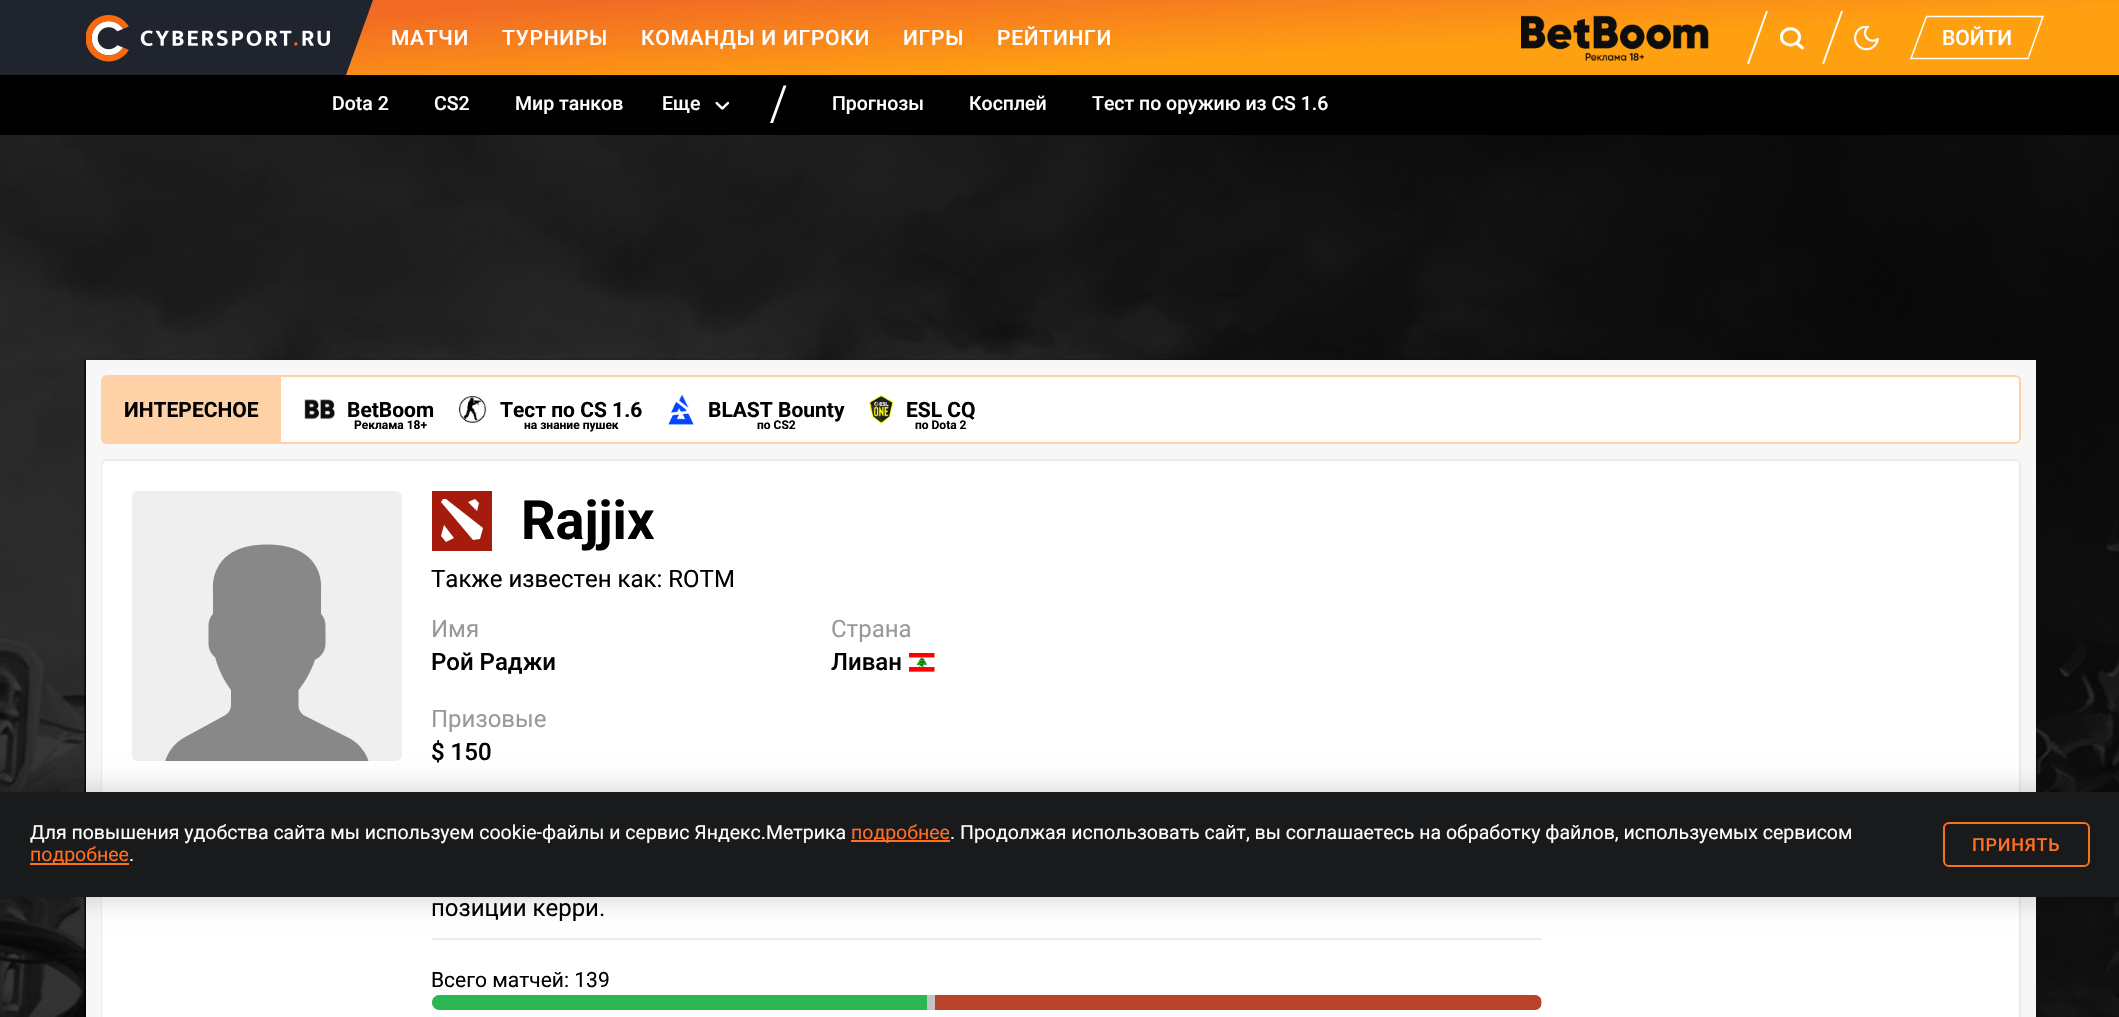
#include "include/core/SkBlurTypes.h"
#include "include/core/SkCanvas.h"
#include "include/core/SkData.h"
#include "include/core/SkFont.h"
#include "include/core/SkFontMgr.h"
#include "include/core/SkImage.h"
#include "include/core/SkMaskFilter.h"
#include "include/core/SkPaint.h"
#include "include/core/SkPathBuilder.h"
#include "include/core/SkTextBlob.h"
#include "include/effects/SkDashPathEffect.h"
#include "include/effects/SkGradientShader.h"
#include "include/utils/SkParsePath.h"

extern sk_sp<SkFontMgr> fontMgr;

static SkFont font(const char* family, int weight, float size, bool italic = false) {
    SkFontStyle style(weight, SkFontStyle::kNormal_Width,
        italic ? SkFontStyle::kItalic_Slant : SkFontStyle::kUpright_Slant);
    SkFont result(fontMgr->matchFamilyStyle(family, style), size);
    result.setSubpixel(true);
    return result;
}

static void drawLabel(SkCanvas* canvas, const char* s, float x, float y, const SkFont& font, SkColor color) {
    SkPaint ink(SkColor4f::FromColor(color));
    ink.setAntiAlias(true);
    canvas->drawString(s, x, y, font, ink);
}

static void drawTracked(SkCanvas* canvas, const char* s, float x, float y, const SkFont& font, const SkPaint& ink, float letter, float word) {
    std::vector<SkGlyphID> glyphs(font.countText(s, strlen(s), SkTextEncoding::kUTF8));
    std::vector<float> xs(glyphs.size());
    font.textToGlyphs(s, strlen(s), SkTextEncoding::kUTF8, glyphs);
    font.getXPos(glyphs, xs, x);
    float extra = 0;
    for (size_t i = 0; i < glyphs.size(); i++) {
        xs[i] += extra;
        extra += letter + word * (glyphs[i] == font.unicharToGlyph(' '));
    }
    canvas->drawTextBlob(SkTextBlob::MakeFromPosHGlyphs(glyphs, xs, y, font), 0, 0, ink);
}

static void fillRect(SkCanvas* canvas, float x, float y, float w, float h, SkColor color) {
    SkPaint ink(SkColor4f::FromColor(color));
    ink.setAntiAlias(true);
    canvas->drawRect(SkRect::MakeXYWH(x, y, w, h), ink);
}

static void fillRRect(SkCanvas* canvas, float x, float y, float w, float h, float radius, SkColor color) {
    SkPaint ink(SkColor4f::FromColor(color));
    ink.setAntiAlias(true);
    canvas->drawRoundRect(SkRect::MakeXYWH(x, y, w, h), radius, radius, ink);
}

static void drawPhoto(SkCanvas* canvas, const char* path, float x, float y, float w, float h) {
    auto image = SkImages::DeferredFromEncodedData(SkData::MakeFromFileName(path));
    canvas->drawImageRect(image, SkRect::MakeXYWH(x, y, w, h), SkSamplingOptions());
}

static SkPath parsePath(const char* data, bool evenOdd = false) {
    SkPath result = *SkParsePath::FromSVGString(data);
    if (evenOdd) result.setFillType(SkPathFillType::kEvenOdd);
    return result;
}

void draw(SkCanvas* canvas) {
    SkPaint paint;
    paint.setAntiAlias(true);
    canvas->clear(0xFFFFFFFF);
    {
        const SkColor colors[] = {0xFFF26B24, 0xFFFFA011};
        const float stops[] = {0.17f, 0.67f};
        const SkPoint ends[] = {{1054, -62}, {1066, 137}};
        paint.setShader(SkGradientShader::MakeLinear(ends, colors, stops, 2, SkTileMode::kClamp));
        paint.setAlpha(255);
    }
    canvas->drawRect(SkRect::MakeXYWH(2051, 0, 68, 75), paint);
    fillRect(canvas, 0, 0, 328, 75, 0xFF20242F);
    {
        const SkColor colors[] = {0xFFF26B24, 0xFFFFA011};
        const float stops[] = {0.17f, 0.67f};
        const SkPoint ends[] = {{1055, -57}, {1066, 132}};
        paint.setShader(SkGradientShader::MakeLinear(ends, colors, stops, 2, SkTileMode::kClamp));
        paint.setAlpha(255);
    }
    canvas->drawRect(SkRect::MakeXYWH(346, 0, 1705, 75), paint);
    paint.setShader(nullptr);
    paint.setColor(0xFF20242F);
    canvas->drawPath(parsePath("M328 0H373L346 75H301Z"), paint);
    drawPhoto(canvas, "assets/img1.png", 86, 15, 244, 47);
    SkFont font1 = font("Roboto", 500, 21);
    paint.setColor(0xFFFFFFFF);
    drawTracked(canvas, "МАТЧИ", 391, 45, font1, paint, 0.75f, 0);
    drawTracked(canvas, "ТУРНИРЫ", 502, 45, font1, paint, 0.75f, 0);
    drawTracked(canvas, "КОМАНДЫ И ИГРОКИ", 641, 45, font1, paint, 0.75f, 0);
    drawTracked(canvas, "ИГРЫ", 903, 45, font1, paint, 0.75f, 0);
    drawTracked(canvas, "РЕЙТИНГИ", 997, 45, font1, paint, 0.75f, 0);
    drawPhoto(canvas, "assets/img2.png", 1521, 15, 188, 46);
    canvas->drawPath(parsePath("M1766 11H1768L1749 64H1747Z"), paint);
    paint.setStroke(true);
    paint.setStrokeWidth(3);
    canvas->drawPath(parsePath("M1799.5 37C1799.5 47.5 1781.5 47.5 1781.5 37C1781.5 26 1799.5 26 1799.5 37Z"), paint);
    paint.setStrokeCap(SkPaint::kRound_Cap);
    canvas->drawPath(parsePath("M1796.5 43L1802.5 48"), paint);
    paint.setStroke(false);
    canvas->drawPath(parsePath("M1841 11H1843L1824 64H1822Z"), paint);
    drawPhoto(canvas, "assets/img3.png", 1854, 26, 25, 25);
    paint.setStroke(true);
    paint.setStrokeWidth(1.5f);
    paint.setStrokeCap(SkPaint::kButt_Cap);
    canvas->drawPath(parsePath("M1926.5 16.5H2043L2028 58.5H1911Z"), paint);
    drawLabel(canvas, "ВОЙТИ", 1942, 45, font1, 0xFFFFFFFF);
    fillRect(canvas, 0, 75, 2119, 60, 0xFF000000);
    SkFont font2 = font("Roboto", 500, 19.5f);
    drawLabel(canvas, "Dota 2", 332, 110, font2, 0xFFFFFFFF);
    drawLabel(canvas, "CS2", 434, 110, font2, 0xFFFFFFFF);
    drawLabel(canvas, "Мир танков", 515, 110, font2, 0xFFFFFFFF);
    drawLabel(canvas, "Еще", 662, 110, font2, 0xFFFFFFFF);
    drawPhoto(canvas, "assets/img4.png", 715, 101, 15, 9);
    paint.setStroke(false);
    canvas->drawPath(parsePath("M783.5 85.5H786.5L773 123H770Z"), paint);
    drawLabel(canvas, "Прогнозы", 832, 110, font2, 0xFFFFFFFF);
    drawLabel(canvas, "Косплей", 969, 110, font2, 0xFFFFFFFF);
    drawLabel(canvas, "Тест по оружию из CS 1.6", 1092, 110, font2, 0xFFFFFFFF);
    drawPhoto(canvas, "assets/img5.png", 0, 135, 2119, 882);
    fillRect(canvas, 86, 360, 1950, 657, 0xFFF7F7F7);
    canvas->drawRoundRect(SkRect::MakeXYWH(102, 376, 1918, 67), 5, 5, paint);
    paint.setStroke(true);
    paint.setStrokeWidth(2);
    paint.setColor(0xFFFFD1A6);
    canvas->drawRoundRect(SkRect::MakeXYWH(102, 376, 1918, 67), 5, 5, paint);
    fillRect(canvas, 102, 377, 179, 66, 0xFFFFD1A6);
    SkFont font3 = font("Roboto", 700, 21);
    drawLabel(canvas, "ИНТЕРЕСНОЕ", 124, 417, font3, 0xFF000000);
    drawPhoto(canvas, "assets/img6.png", 304, 399, 31, 21);
    drawLabel(canvas, "BetBoom", 347, 417, font3, 0xFF000000);
    SkFont font4 = font("Roboto", 700, 12);
    drawLabel(canvas, "Реклама 18+", 354, 429, font4, 0xFF000000);
    drawPhoto(canvas, "assets/img7.png", 457, 394, 31, 31);
    drawLabel(canvas, "Тест по CS 1.6", 500, 417, font3, 0xFF000000);
    drawLabel(canvas, "на знание пушек", 524, 429, font4, 0xFF000000);
    drawPhoto(canvas, "assets/img8.png", 668, 394, 26, 31);
    drawLabel(canvas, "BLAST Bounty", 708, 417, font3, 0xFF000000);
    drawLabel(canvas, "по CS2", 757, 429, font4, 0xFF000000);
    drawPhoto(canvas, "assets/img9.png", 868, 394, 26, 30);
    drawLabel(canvas, "ESL CQ", 906, 417, font3, 0xFF000000);
    drawLabel(canvas, "по Dota 2", 915, 429, font4, 0xFF000000);
    paint.setStroke(false);
    paint.setColor(0xFFFFFFFF);
    canvas->drawRoundRect(SkRect::MakeXYWH(102, 460, 1918, 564), 5, 5, paint);
    paint.setStroke(true);
    paint.setColor(0xFFEBEBEB);
    canvas->drawRoundRect(SkRect::MakeXYWH(102, 460, 1918, 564), 5, 5, paint);
    fillRRect(canvas, 102, 461, 1917, 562, 6, 0xFFFFFFFF);
    fillRRect(canvas, 132, 491, 270, 270, 6, 0xFFEFEFEF);
    drawPhoto(canvas, "assets/img10.png", 165, 544, 204, 217);
    fillRect(canvas, 432, 491, 60, 60, 0xFFA51C0F);
    paint.setStroke(false);
    paint.setColor(0xFFFFFFFF);
    canvas->drawPath(parsePath("M480 539L473 540L441 502L443 499H446L483 528ZM446 542L441 536L444 525L454 538ZM475 499L479 503L477 511L468 502Z"), paint);
    SkFont font5 = font("Roboto", 700, 54);
    drawLabel(canvas, "Rajjix", 521, 539, font5, 0xFF000000);
    SkFont font6 = font("Roboto", 400, 24);
    drawLabel(canvas, "Также известен как: ROTM", 431, 587, font6, 0xFF000000);
    drawLabel(canvas, "Имя", 431, 637, font6, 0xFF999999);
    SkFont font7 = font("Roboto", 500, 24);
    drawLabel(canvas, "Рой Раджи", 431, 670, font7, 0xFF000000);
    drawLabel(canvas, "Страна", 831, 637, font6, 0xFF999999);
    drawLabel(canvas, "Ливан", 831, 670, font7, 0xFF000000);
    drawPhoto(canvas, "assets/img11.png", 909, 653, 26, 19);
    drawLabel(canvas, "Призовые", 431, 727, font6, 0xFF999999);
    drawLabel(canvas, "$ 150", 431, 760, font7, 0xFF000000);
    fillRect(canvas, 432, 938, 1110, 2, 0xFFEBEBEB);
    drawLabel(canvas, "позиции керри.", 431, 916, font6, 0xFF000000);
    SkFont font8 = font("Roboto", 400, 21);
    drawLabel(canvas, "Всего матчей: 139", 431, 987, font8, 0xFF000000);
    fillRRect(canvas, 432, 995, 1110, 15, 7.5f, 0xFFC4C4C4);
    paint.setColor(0xFF2AB651);
    canvas->drawPath(parsePath("M439.5 995H927V1010H439.5C435.5 1010 432 1006.5 432 1002.5C432 998.5 435.5 995 439.5 995Z"), paint);
    canvas->save();
    canvas->clipPath(parsePath("M439.5 995H1534.5C1538.5 995 1542 998.5 1542 1002.5C1542 1006.5 1538.5 1010 1534.5 1010H439.5C435.5 1010 432 1006.5 432 1002.5C432 998.5 435.5 995 439.5 995Z"), true);
    fillRect(canvas, 935, 995, 606, 15, 0xFFB6432A);
    canvas->restore();
    paint.setColor(0x33000000);
    paint.setMaskFilter(SkMaskFilter::MakeBlur(kNormal_SkBlurStyle, 13.5f));
    canvas->drawRect(SkRect::MakeXYWH(0, 792, 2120, 105), paint);
    paint.setMaskFilter(nullptr);
    fillRect(canvas, 0, 792, 2119, 105, 0xFF181A1C);
    SkFont font9 = font("Roboto", 400, 19.5f);
    drawLabel(canvas, "Для повышения удобства сайта мы используем cookie-файлы и сервис Яндекс.Метрика", 30, 839, font9, 0xFFFFFFFF);
    fillRect(canvas, 851, 840, 99, 2, 0xFFFF6F22);
    drawLabel(canvas, "подробнее", 851, 839, font9, 0xFFFF6F22);
    drawLabel(canvas, ". Продолжая использовать сайт, вы соглашаетесь на обработку файлов, используемых сервисом", 950, 839, font9, 0xFFFFFFFF);
    fillRect(canvas, 30, 863, 99, 2, 0xFFFF6F22);
    drawLabel(canvas, "подробнее", 30, 861, font9, 0xFFFF6F22);
    drawLabel(canvas, ".", 129, 861, font9, 0xFFFFFFFF);
    paint.setStroke(true);
    paint.setColor(0xFFFF6F22);
    canvas->drawRoundRect(SkRect::MakeXYWH(1944, 823, 145, 43), 5, 5, paint);
    SkFont font10 = font("Roboto", 500, 18);
    paint.setStroke(false);
    drawTracked(canvas, "ПРИНЯТЬ", 1972, 851, font10, paint, 0.75f, 0);
}
